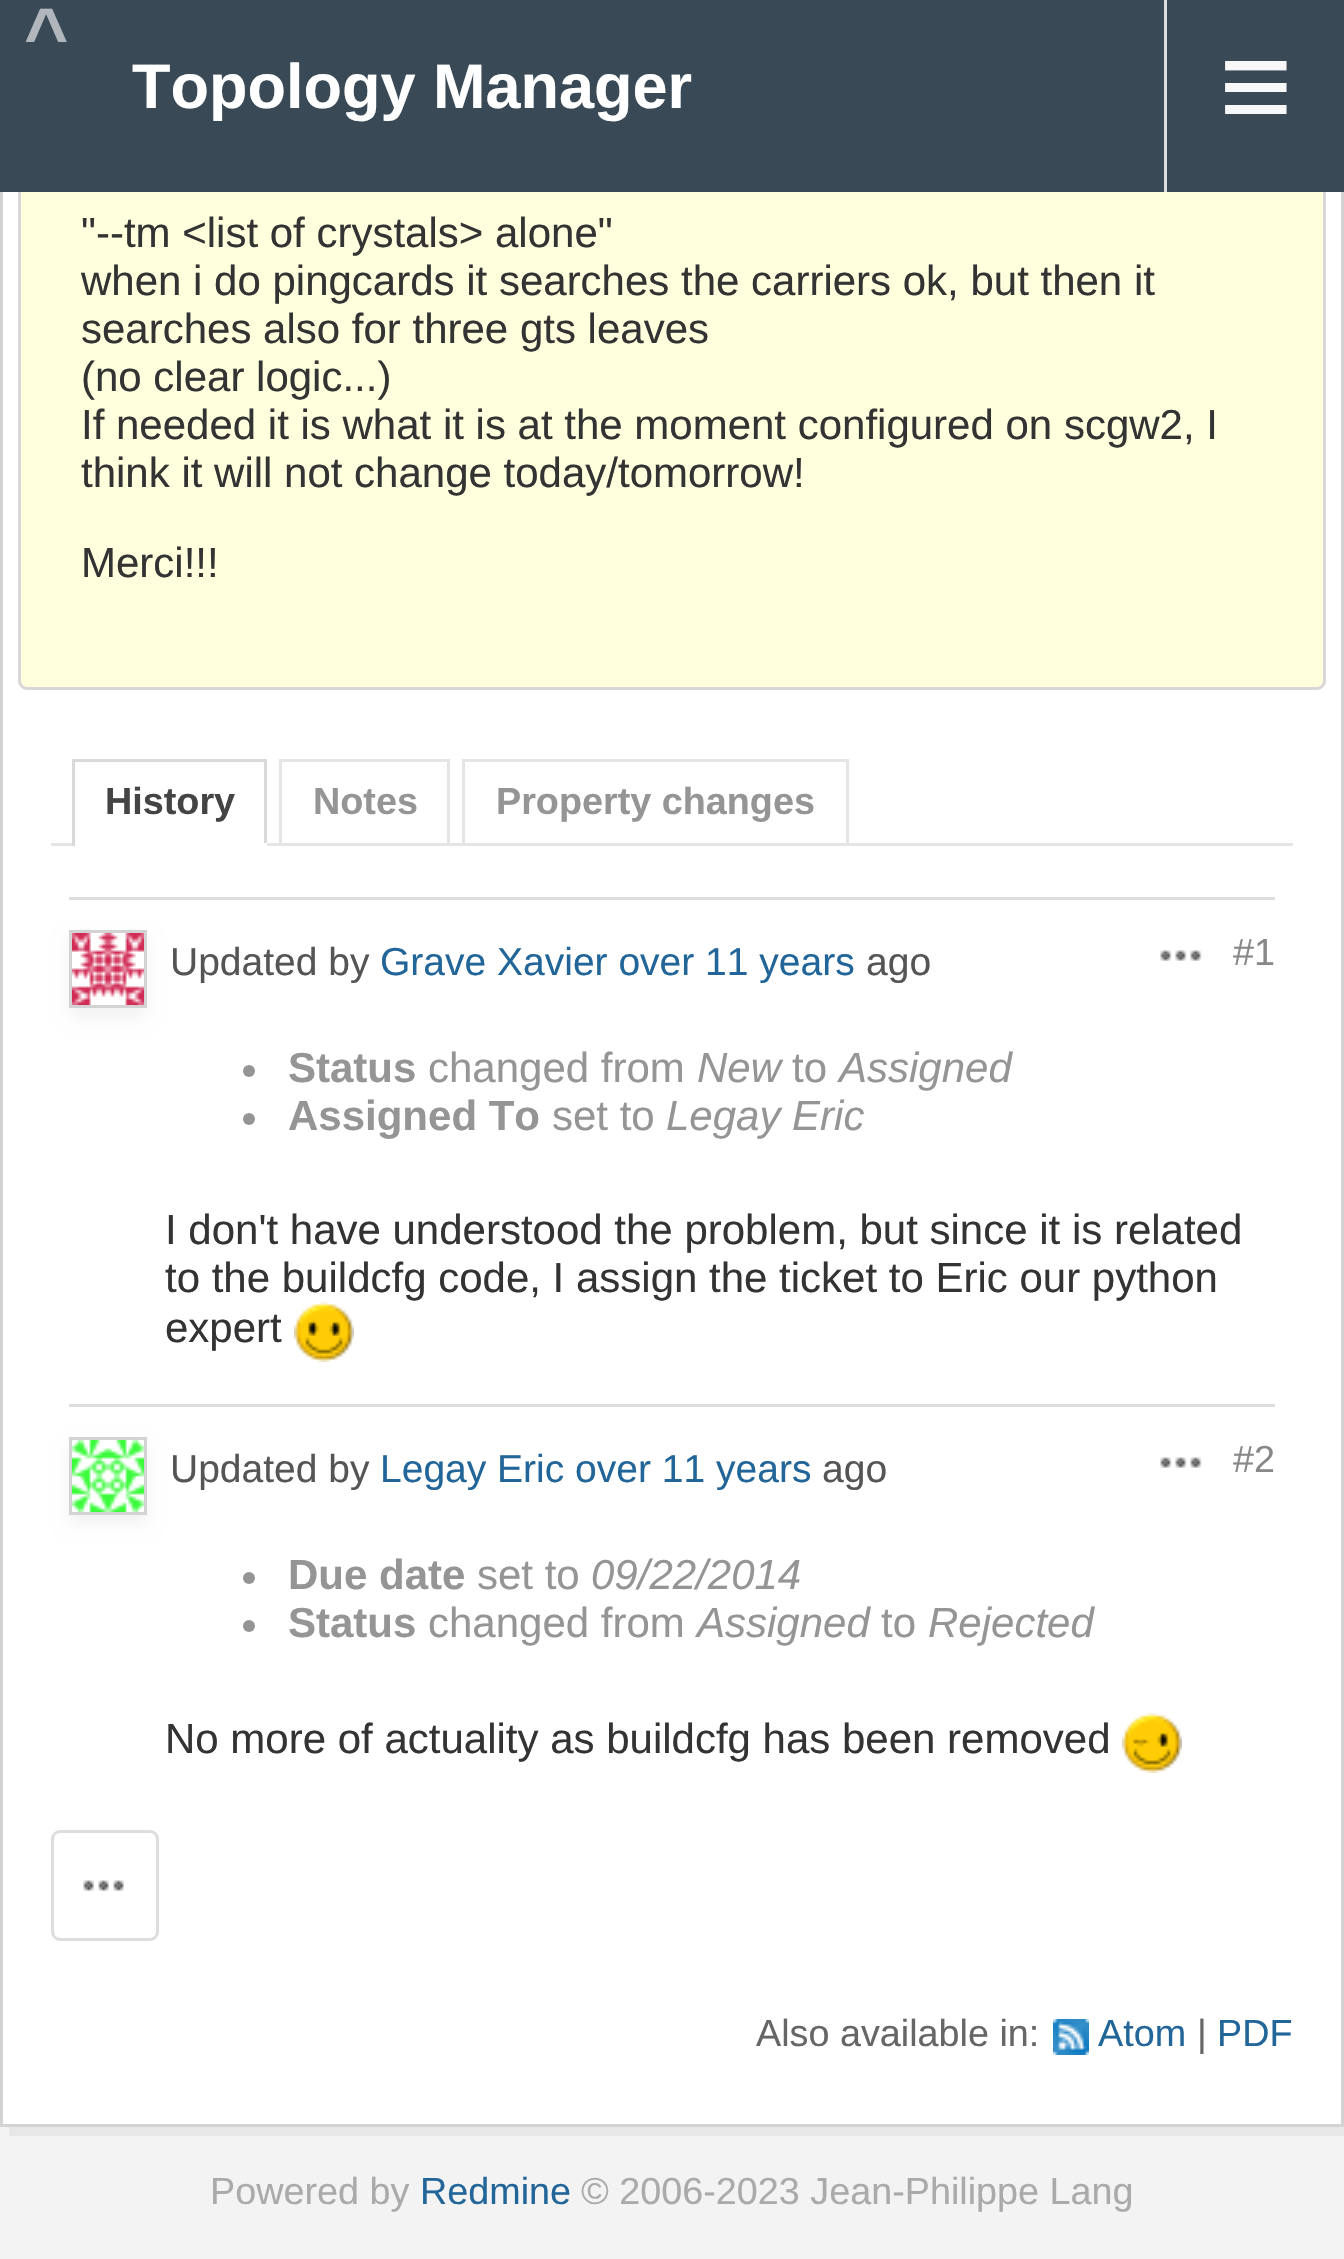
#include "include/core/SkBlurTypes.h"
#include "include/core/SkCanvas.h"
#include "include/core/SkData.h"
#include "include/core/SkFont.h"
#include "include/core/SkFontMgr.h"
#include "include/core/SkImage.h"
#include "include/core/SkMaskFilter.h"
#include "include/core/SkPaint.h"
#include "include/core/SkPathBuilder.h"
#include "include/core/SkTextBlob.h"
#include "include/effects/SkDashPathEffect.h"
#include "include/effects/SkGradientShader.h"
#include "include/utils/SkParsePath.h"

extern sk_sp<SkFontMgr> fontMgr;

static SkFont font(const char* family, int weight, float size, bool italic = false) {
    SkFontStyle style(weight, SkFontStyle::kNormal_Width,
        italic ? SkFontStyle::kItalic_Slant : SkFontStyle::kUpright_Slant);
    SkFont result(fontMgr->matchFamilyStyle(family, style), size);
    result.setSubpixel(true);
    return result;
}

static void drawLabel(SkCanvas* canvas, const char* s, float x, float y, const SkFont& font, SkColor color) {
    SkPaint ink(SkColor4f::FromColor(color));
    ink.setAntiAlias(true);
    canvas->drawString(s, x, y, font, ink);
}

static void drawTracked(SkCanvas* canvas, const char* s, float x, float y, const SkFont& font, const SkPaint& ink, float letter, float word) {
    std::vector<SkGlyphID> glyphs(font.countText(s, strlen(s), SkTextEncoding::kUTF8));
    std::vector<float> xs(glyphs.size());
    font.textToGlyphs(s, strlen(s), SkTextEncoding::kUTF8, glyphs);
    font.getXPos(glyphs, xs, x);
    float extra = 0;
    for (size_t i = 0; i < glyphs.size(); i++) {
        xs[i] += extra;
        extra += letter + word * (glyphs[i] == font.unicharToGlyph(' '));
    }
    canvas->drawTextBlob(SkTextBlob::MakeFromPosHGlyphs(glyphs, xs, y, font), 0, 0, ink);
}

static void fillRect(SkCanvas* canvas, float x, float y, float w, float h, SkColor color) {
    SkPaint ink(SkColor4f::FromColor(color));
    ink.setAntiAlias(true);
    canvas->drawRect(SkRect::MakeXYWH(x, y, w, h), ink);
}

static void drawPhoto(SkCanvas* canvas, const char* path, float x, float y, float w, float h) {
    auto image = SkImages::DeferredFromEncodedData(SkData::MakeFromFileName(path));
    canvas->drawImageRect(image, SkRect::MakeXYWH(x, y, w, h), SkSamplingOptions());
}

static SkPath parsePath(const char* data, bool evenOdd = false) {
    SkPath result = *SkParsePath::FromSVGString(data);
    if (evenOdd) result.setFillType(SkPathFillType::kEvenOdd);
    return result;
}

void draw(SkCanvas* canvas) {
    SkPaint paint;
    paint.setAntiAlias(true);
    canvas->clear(0xFFF3F3F3);
    fillRect(canvas, 3, 192, 1338, 1932, 0xFFFFFFFF);
    paint.setStroke(true);
    paint.setStrokeWidth(3);
    paint.setColor(0xFFD3D3D3);
    canvas->drawRect(SkRect::MakeXYWH(1.5f, -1.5f, 1341, 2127), paint);
    paint.setStroke(false);
    paint.setColor(0xFFFFFFDD);
    canvas->drawRoundRect(SkRect::MakeXYWH(19.5f, -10.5f, 1305, 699), 7.5f, 7.5f, paint);
    paint.setStroke(true);
    paint.setColor(0xFFD7D7D7);
    canvas->drawRoundRect(SkRect::MakeXYWH(19.5f, -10.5f, 1305, 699), 7.5f, 7.5f, paint);
    fillRect(canvas, 0, 0, 1344, 192, 0xFF394956);
    SkFont font1 = font("Liberation Sans", 700, 76);
    paint.setStroke(false);
    paint.setColor(0xFFB0B6BB);
    drawTracked(canvas, "^", 24, 61, font1, paint, 11, 0);
    SkFont font2 = font("Liberation Sans", 700, 63);
    drawLabel(canvas, "Topology Manager", 132, 108, font2, 0xFFFFFFFF);
    fillRect(canvas, 1164, 0, 3, 192, 0xFFDDDDDD);
    SkFont font3 = font("Liberation Sans", 400, 126);
    drawLabel(canvas, "≡", 1219, 129, font3, 0xFFF8F8F8);
    paint.setColor(0xFFE7E7E7);
    canvas->drawPath(parsePath("M9 2127V2136H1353V-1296H1344V2127Z"), paint);
    SkFont font4 = font("Liberation Sans", 400, 42);
    drawLabel(canvas, "\"--tm <list of crystals> alone\"", 81, 247, font4, 0xFF333333);
    drawLabel(canvas, "when i do pingcards it searches the carriers ok, but then it", 81, 295, font4, 0xFF333333);
    drawLabel(canvas, "searches also for three gts leaves", 81, 343, font4, 0xFF333333);
    drawLabel(canvas, "(no clear logic...)", 81, 391, font4, 0xFF333333);
    drawLabel(canvas, "If needed it is what it is at the moment configured on scgw2, I", 81, 439, font4, 0xFF333333);
    drawLabel(canvas, "think it will not change today/tomorrow!", 81, 487, font4, 0xFF333333);
    drawLabel(canvas, "Merci!!!", 81, 577, font4, 0xFF333333);
    fillRect(canvas, 51, 843, 1242, 3, 0xFFE5E5E5);
    fillRect(canvas, 72, 759, 195, 3, 0xFFD9D9D9);
    fillRect(canvas, 264, 759, 3, 87, 0xFFD9D9D9);
    fillRect(canvas, 72, 843, 195, 3, 0xFFFFFFFF);
    fillRect(canvas, 72, 759, 3, 87, 0xFFD9D9D9);
    SkFont font5 = font("Liberation Sans", 700, 37.75f);
    drawLabel(canvas, "History", 105, 814, font5, 0xFF444444);
    paint.setStroke(true);
    paint.setColor(0xFFE5E5E5);
    canvas->drawRect(SkRect::MakeXYWH(280.5f, 760.5f, 168, 84), paint);
    drawLabel(canvas, "Notes", 313, 814, font5, 0xFF959595);
    canvas->drawRect(SkRect::MakeXYWH(463.5f, 760.5f, 384, 84), paint);
    drawLabel(canvas, "Property changes", 496, 814, font5, 0xFF959595);
    fillRect(canvas, 69, 897, 1206, 3, 0xFFDDDDDD);
    paint.setStroke(false);
    paint.setColor(0x0D000000);
    paint.setMaskFilter(SkMaskFilter::MakeBlur(kNormal_SkBlurStyle, 7.5f));
    canvas->drawRect(SkRect::MakeXYWH(69, 939, 78, 78), paint);
    paint.setMaskFilter(nullptr);
    paint.setStroke(true);
    paint.setColor(0xFFD3D3D3);
    canvas->drawRect(SkRect::MakeXYWH(70.5f, 931.5f, 75, 75), paint);
    drawPhoto(canvas, "assets/img1.png", 72, 933, 72, 72);
    SkFont font6 = font("Liberation Sans", 400, 39);
    drawLabel(canvas, "Updated by", 170, 975, font6, 0xFF555555);
    drawLabel(canvas, "Grave Xavier over 11 years", 380, 975, font6, 0xFF226699);
    drawLabel(canvas, "ago", 866, 975, font6, 0xFF555555);
    drawPhoto(canvas, "assets/img2.png", 1160, 950, 42, 11);
    SkFont font7 = font("Liberation Sans", 400, 37.75f);
    drawLabel(canvas, "#1", 1233, 965, font7, 0xFF888888);
    paint.setStroke(false);
    paint.setColor(0xFF959595);
    canvas->drawCircle(249, 1071, 6, paint);
    SkFont font8 = font("Liberation Sans", 700, 42);
    drawLabel(canvas, "Status", 288, 1082, font8, 0xFF959595);
    drawLabel(canvas, "changed from", 428, 1082, font4, 0xFF959595);
    SkFont font9 = font("Liberation Sans", 400, 42, true);
    drawLabel(canvas, "New", 697, 1082, font9, 0xFF959595);
    drawLabel(canvas, "to", 792, 1082, font4, 0xFF959595);
    drawLabel(canvas, "Assigned", 839, 1082, font9, 0xFF959595);
    canvas->drawCircle(249, 1119, 6, paint);
    drawLabel(canvas, "Assigned To", 288, 1130, font8, 0xFF959595);
    drawLabel(canvas, "set to", 552, 1130, font4, 0xFF959595);
    drawLabel(canvas, "Legay Eric", 666, 1130, font9, 0xFF959595);
    drawLabel(canvas, "I don't have understood the problem, but since it is related", 165, 1244, font4, 0xFF333333);
    drawLabel(canvas, "to the buildcfg code, I assign the ticket to Eric our python", 165, 1292, font4, 0xFF333333);
    drawLabel(canvas, "expert", 165, 1342, font4, 0xFF333333);
    drawPhoto(canvas, "assets/img3.png", 294, 1302, 60, 60);
    fillRect(canvas, 69, 1404, 1206, 3, 0xFFDDDDDD);
    paint.setColor(0x0D000000);
    paint.setMaskFilter(SkMaskFilter::MakeBlur(kNormal_SkBlurStyle, 7.5f));
    canvas->drawRect(SkRect::MakeXYWH(69, 1446, 78, 78), paint);
    paint.setMaskFilter(nullptr);
    paint.setStroke(true);
    paint.setColor(0xFFD3D3D3);
    canvas->drawRect(SkRect::MakeXYWH(70.5f, 1438.5f, 75, 75), paint);
    drawPhoto(canvas, "assets/img4.png", 72, 1440, 72, 72);
    drawLabel(canvas, "Updated by", 170, 1482, font6, 0xFF555555);
    drawLabel(canvas, "Legay Eric over 11 years", 380, 1482, font6, 0xFF226699);
    drawLabel(canvas, "ago", 822, 1482, font6, 0xFF555555);
    drawPhoto(canvas, "assets/img2.png", 1160, 1457, 42, 11);
    drawLabel(canvas, "#2", 1233, 1472, font7, 0xFF888888);
    paint.setStroke(false);
    paint.setColor(0xFF959595);
    canvas->drawCircle(249, 1578, 6, paint);
    drawLabel(canvas, "Due date", 288, 1589, font8, 0xFF959595);
    drawLabel(canvas, "set to", 477, 1589, font4, 0xFF959595);
    drawLabel(canvas, "09/22/2014", 591, 1589, font9, 0xFF959595);
    canvas->drawCircle(249, 1626, 6, paint);
    drawLabel(canvas, "Status", 288, 1637, font8, 0xFF959595);
    drawLabel(canvas, "changed from", 428, 1637, font4, 0xFF959595);
    drawLabel(canvas, "Assigned", 697, 1637, font9, 0xFF959595);
    drawLabel(canvas, "to", 881, 1637, font4, 0xFF959595);
    drawLabel(canvas, "Rejected", 928, 1637, font9, 0xFF959595);
    drawLabel(canvas, "No more of actuality as buildcfg has been removed", 165, 1753, font4, 0xFF333333);
    drawPhoto(canvas, "assets/img5.png", 1122, 1713, 60, 60);
    paint.setStroke(true);
    paint.setColor(0xFFDDDDDD);
    canvas->drawRoundRect(SkRect::MakeXYWH(52.5f, 1831.5f, 105, 108), 7.5f, 7.5f, paint);
    drawPhoto(canvas, "assets/img6.png", 83, 1880, 41, 11);
    drawLabel(canvas, "Also available in:", 756, 2046, font7, 0xFF666666);
    drawPhoto(canvas, "assets/img7.png", 1053, 2019, 36, 36);
    drawLabel(canvas, "Atom", 1098, 2046, font7, 0xFF226699);
    drawLabel(canvas, "|", 1197, 2046, font7, 0xFF666666);
    drawLabel(canvas, "PDF", 1217, 2046, font7, 0xFF226699);
    drawLabel(canvas, "Powered by", 210, 2204, font7, 0xFFAAAAAA);
    drawLabel(canvas, "Redmine", 420, 2204, font7, 0xFF226699);
    drawLabel(canvas, "© 2006-2023 Jean-Philippe Lang", 581, 2204, font7, 0xFFAAAAAA);
}
